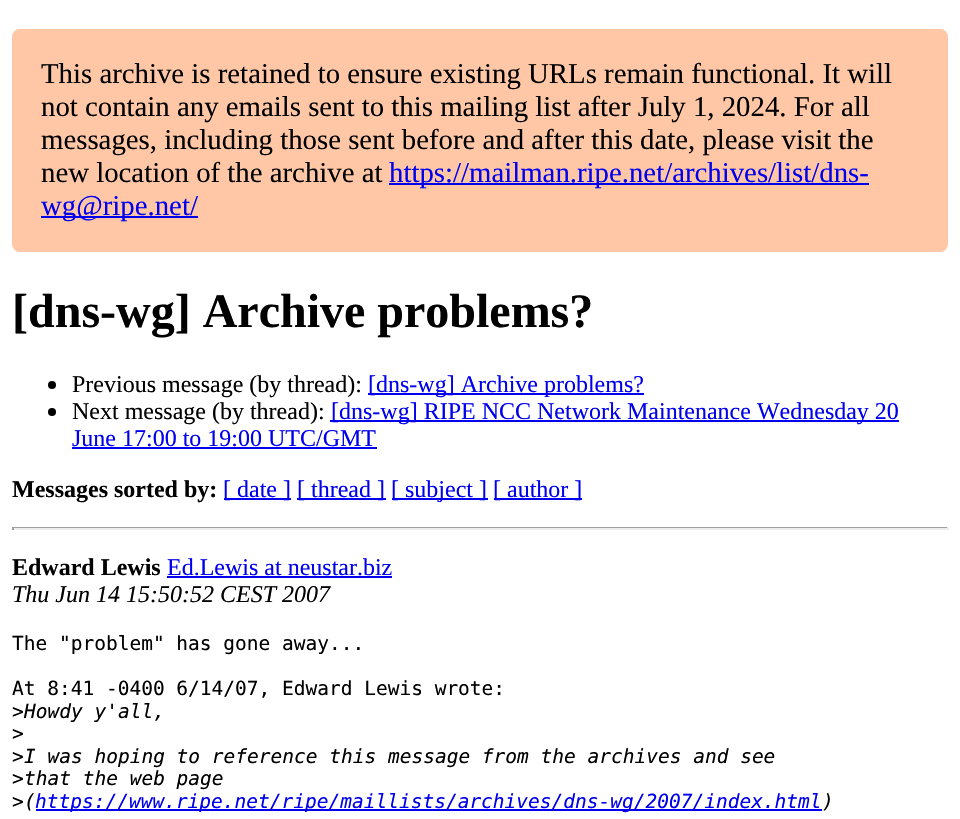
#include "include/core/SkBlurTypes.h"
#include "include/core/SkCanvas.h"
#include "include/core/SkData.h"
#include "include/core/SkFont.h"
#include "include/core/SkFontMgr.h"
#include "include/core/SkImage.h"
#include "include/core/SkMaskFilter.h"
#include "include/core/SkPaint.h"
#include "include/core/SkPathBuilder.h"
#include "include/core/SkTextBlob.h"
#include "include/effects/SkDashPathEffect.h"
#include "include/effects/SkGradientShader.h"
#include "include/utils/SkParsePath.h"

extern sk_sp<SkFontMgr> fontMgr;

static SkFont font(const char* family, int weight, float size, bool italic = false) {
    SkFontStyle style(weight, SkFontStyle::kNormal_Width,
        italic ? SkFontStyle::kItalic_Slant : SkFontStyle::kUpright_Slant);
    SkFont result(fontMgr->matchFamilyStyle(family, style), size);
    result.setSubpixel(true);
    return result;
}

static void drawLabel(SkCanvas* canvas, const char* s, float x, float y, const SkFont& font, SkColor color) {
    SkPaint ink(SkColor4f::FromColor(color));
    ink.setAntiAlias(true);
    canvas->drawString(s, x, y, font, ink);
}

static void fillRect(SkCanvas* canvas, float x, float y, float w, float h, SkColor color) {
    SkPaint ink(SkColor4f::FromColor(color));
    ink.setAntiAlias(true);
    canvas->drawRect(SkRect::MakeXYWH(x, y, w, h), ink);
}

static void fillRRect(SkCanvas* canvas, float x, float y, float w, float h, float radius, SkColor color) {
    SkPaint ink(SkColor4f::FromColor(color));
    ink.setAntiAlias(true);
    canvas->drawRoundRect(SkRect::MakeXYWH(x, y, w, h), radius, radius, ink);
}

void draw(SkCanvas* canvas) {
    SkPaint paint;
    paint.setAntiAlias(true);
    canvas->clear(0xFFFFFFFF);
    fillRRect(canvas, 12, 29, 936, 223, 8, 0xFFFFC7A6);
    SkFont font1 = font("Liberation Serif", 400, 28.8f);
    drawLabel(canvas, "This archive is retained to ensure existing URLs remain functional. It will", 41, 83, font1, 0xFF000000);
    drawLabel(canvas, "not contain any emails sent to this mailing list after July 1, 2024. For all", 41, 116, font1, 0xFF000000);
    drawLabel(canvas, "messages, including those sent before and after this date, please visit the", 41, 149, font1, 0xFF000000);
    drawLabel(canvas, "new location of the archive at", 41, 182, font1, 0xFF000000);
    fillRect(canvas, 389, 183, 480, 2, 0xFF0000EE);
    drawLabel(canvas, "https://mailman.ripe.net/archives/list/dns-", 389, 182, font1, 0xFF0000EE);
    fillRect(canvas, 41, 216, 157, 2, 0xFF0000EE);
    drawLabel(canvas, "wg@ripe.net/", 41, 215, font1, 0xFF0000EE);
    SkFont font2 = font("Liberation Serif", 700, 48);
    drawLabel(canvas, "[dns-wg] Archive problems?", 12, 327, font2, 0xFF000000);
    paint.setColor(0xFF000000);
    canvas->drawCircle(52, 385, 4, paint);
    SkFont font3 = font("Liberation Serif", 400, 24);
    drawLabel(canvas, "Previous message (by thread):", 72, 392, font3, 0xFF000000);
    fillRect(canvas, 368, 393, 276, 2, 0xFF0000EE);
    drawLabel(canvas, "[dns-wg] Archive problems?", 368, 392, font3, 0xFF0000EE);
    canvas->drawCircle(52, 412, 4, paint);
    drawLabel(canvas, "Next message (by thread):", 72, 419, font3, 0xFF000000);
    fillRect(canvas, 330, 420, 569, 2, 0xFF0000EE);
    drawLabel(canvas, "[dns-wg] RIPE NCC Network Maintenance Wednesday 20", 331, 419, font3, 0xFF0000EE);
    drawLabel(canvas, "June 17:00 to 19:00 UTC/GMT", 72, 446, font3, 0xFF0000EE);
    fillRect(canvas, 72, 447, 305, 2, 0xFF0000EE);
    SkFont font4 = font("Liberation Serif", 700, 24);
    drawLabel(canvas, "Messages sorted by:", 12, 497, font4, 0xFF000000);
    fillRect(canvas, 224, 498, 67, 2, 0xFF0000EE);
    drawLabel(canvas, "[ date ]", 223, 497, font3, 0xFF0000EE);
    fillRect(canvas, 297, 498, 89, 2, 0xFF0000EE);
    drawLabel(canvas, "[ thread ]", 297, 497, font3, 0xFF0000EE);
    fillRect(canvas, 392, 498, 96, 2, 0xFF0000EE);
    drawLabel(canvas, "[ subject ]", 391, 497, font3, 0xFF0000EE);
    fillRect(canvas, 494, 498, 88, 2, 0xFF0000EE);
    drawLabel(canvas, "[ author ]", 493, 497, font3, 0xFF0000EE);
    fillRect(canvas, 12, 527, 936, 1, 0xFF9F9F9F);
    fillRect(canvas, 947, 527, 2, 3, 0xFFEEEEEE);
    fillRect(canvas, 12, 528, 936, 2, 0xFFEEEEEE);
    fillRect(canvas, 12, 527, 2, 3, 0xFF9F9F9F);
    drawLabel(canvas, "Edward Lewis", 12, 575, font4, 0xFF000000);
    drawLabel(canvas, "Ed.Lewis at neustar.biz", 167, 575, font3, 0xFF0000EE);
    fillRect(canvas, 167, 576, 225, 2, 0xFF0000EE);
    SkFont font5 = font("Liberation Serif", 400, 24, true);
    drawLabel(canvas, "Thu Jun 14 15:50:52 CEST 2007", 12, 602, font5, 0xFF000000);
    SkFont font6 = font("DejaVu Sans Mono", 400, 19.5f);
    drawLabel(canvas, "The \"problem\" has gone away...", 12, 650, font6, 0xFF000000);
    drawLabel(canvas, "At 8:41 -0400 6/14/07, Edward Lewis wrote:", 12, 695, font6, 0xFF000000);
    drawLabel(canvas, ">", 12, 718, font6, 0xFF000000);
    SkFont font7 = font("DejaVu Sans Mono", 400, 19.5f, true);
    drawLabel(canvas, "Howdy y'all,", 24, 718, font7, 0xFF000000);
    drawLabel(canvas, ">", 12, 740, font6, 0xFF000000);
    drawLabel(canvas, ">", 12, 763, font6, 0xFF000000);
    drawLabel(canvas, "I was hoping to reference this message from the archives and see", 24, 763, font7, 0xFF000000);
    drawLabel(canvas, ">", 12, 785, font6, 0xFF000000);
    drawLabel(canvas, "that the web page", 24, 785, font7, 0xFF000000);
    drawLabel(canvas, ">", 12, 808, font6, 0xFF000000);
    drawLabel(canvas, "(", 24, 808, font7, 0xFF000000);
    fillRect(canvas, 36, 809, 786, 2, 0xFF0000EE);
    drawLabel(canvas, "https://www.ripe.net/ripe/maillists/archives/dns-wg/2007/index.html", 35, 808, font7, 0xFF0000EE);
    drawLabel(canvas, ")", 822, 808, font7, 0xFF000000);
}
